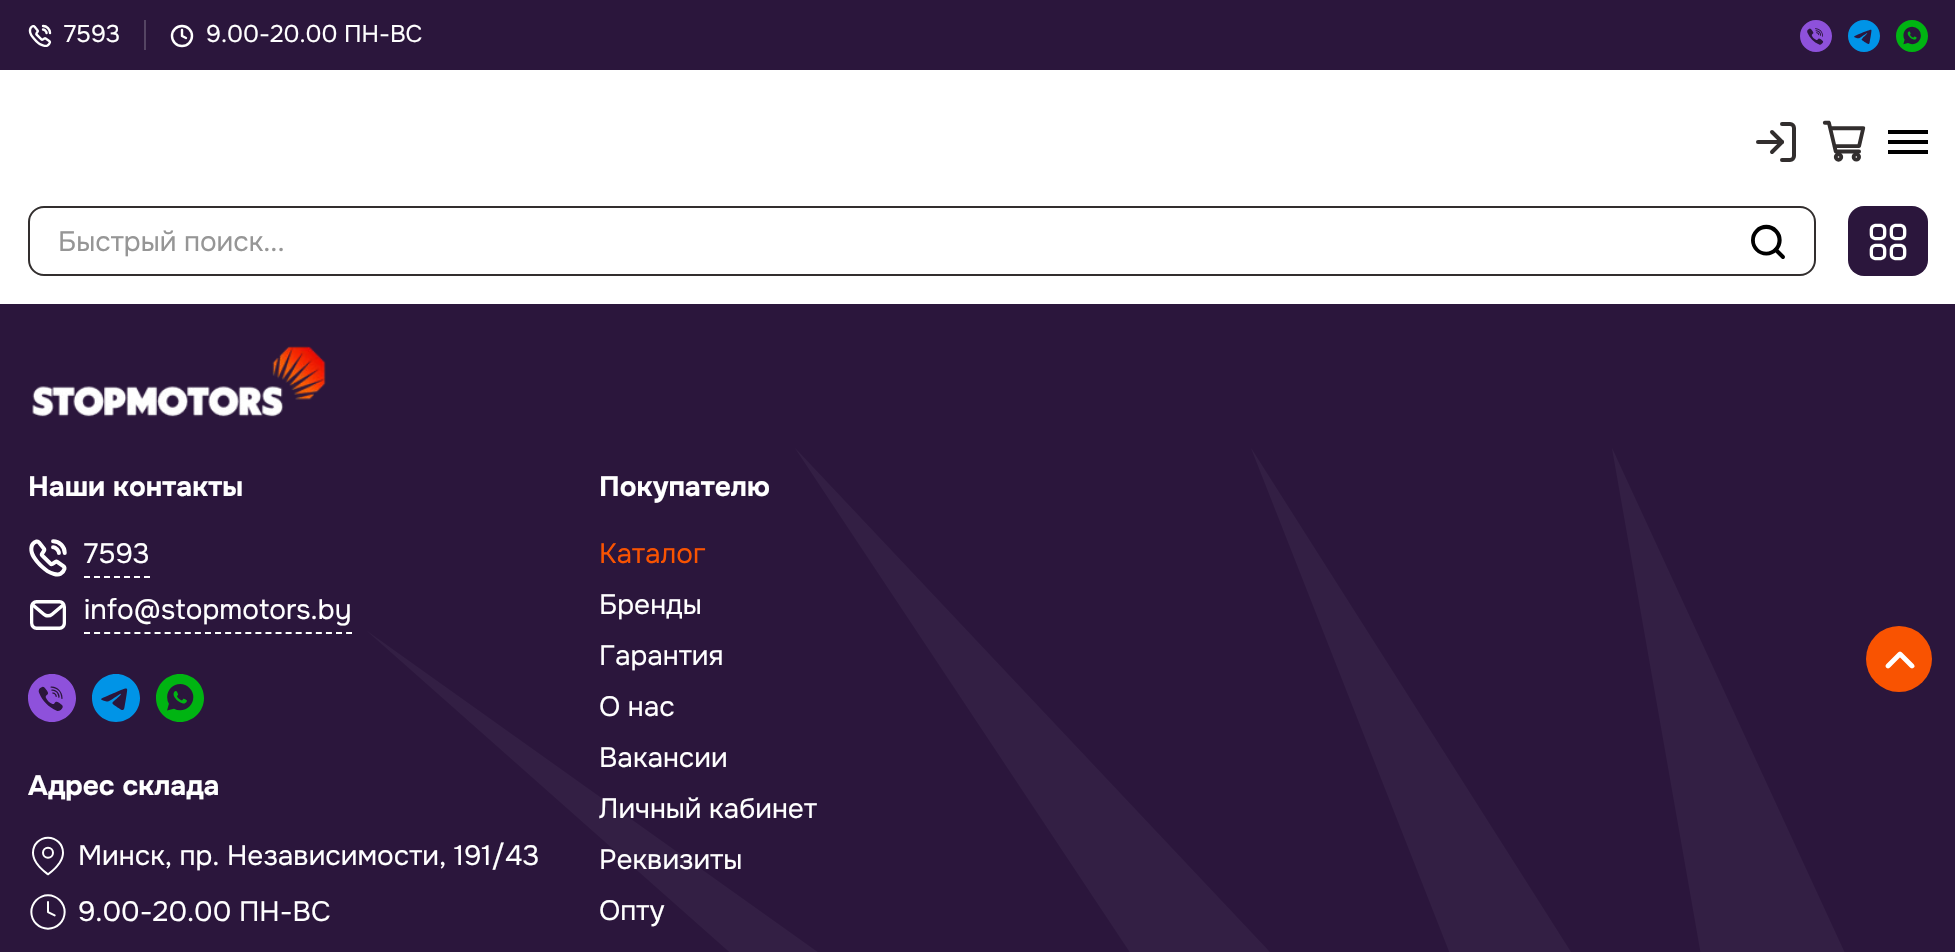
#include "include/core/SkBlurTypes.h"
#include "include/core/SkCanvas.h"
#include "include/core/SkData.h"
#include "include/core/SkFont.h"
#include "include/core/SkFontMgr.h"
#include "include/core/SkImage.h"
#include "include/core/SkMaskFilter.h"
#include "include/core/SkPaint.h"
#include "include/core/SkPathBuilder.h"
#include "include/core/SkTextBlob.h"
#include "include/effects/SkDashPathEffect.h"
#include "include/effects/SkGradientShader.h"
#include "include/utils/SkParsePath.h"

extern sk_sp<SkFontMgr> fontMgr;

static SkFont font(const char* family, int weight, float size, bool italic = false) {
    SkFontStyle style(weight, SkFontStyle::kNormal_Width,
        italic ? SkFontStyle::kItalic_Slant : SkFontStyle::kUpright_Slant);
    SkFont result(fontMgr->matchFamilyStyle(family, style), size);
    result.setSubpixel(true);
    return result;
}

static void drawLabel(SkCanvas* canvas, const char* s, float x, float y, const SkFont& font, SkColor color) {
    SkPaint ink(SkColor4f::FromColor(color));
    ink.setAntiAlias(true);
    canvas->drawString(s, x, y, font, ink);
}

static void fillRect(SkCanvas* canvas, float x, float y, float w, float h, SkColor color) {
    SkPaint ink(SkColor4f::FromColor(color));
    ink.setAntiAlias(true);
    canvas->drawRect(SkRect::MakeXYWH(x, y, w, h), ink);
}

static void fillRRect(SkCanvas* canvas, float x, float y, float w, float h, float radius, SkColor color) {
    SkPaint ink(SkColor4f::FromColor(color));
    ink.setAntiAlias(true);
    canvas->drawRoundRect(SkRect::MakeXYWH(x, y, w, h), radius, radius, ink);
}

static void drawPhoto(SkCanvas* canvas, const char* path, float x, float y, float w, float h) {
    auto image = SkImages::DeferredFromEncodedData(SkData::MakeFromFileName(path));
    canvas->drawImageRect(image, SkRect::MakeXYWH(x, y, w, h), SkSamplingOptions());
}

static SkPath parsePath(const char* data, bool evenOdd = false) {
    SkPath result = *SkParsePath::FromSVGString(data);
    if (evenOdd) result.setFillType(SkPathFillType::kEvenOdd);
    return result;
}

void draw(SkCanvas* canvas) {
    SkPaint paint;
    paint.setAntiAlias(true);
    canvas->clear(0xFF2B163C);
    fillRect(canvas, 0, 70, 1955, 234, 0xFFFFFFFF);
    drawPhoto(canvas, "assets/img1.png", 28, 24, 24, 23);
    SkFont font1 = font("Onest", 400, 24);
    drawLabel(canvas, "7593", 64, 42, font1, 0xFFFFFFFF);
    fillRect(canvas, 144, 20, 2, 30, 0xFF554563);
    drawPhoto(canvas, "assets/img2.png", 170, 24, 24, 24);
    drawLabel(canvas, "9.00-20.00 ПН-ВС", 206, 42, font1, 0xFFFFFFFF);
    drawPhoto(canvas, "assets/img3.png", 1800, 20, 32, 32);
    drawPhoto(canvas, "assets/img4.png", 1848, 20, 32, 32);
    drawPhoto(canvas, "assets/img5.png", 1896, 20, 32, 32);
    drawPhoto(canvas, "assets/img6.png", 1756, 122, 40, 40);
    drawPhoto(canvas, "assets/img7.png", 1822, 120, 44, 42);
    drawPhoto(canvas, "assets/img8.png", 1888, 130, 40, 24);
    paint.setStroke(true);
    paint.setStrokeWidth(2);
    paint.setColor(0xFF322E2E);
    canvas->drawRoundRect(SkRect::MakeXYWH(29, 207, 1786, 68), 15, 15, paint);
    SkFont font2 = font("Onest", 400, 28);
    drawLabel(canvas, "Быстрый поиск...", 58, 251, font2, 0xFF969696);
    drawPhoto(canvas, "assets/img9.png", 1751, 224, 34, 35);
    fillRRect(canvas, 1848, 206, 80, 70, 16, 0xFF2B163C);
    drawPhoto(canvas, "assets/img10.png", 1869, 223, 38, 38);
    paint.setStroke(false);
    paint.setColor(0xFF331F44);
    canvas->drawPath(parsePath("M571 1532L1 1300L1003 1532L183 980L1340 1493L367 631L1410 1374L795 448L1578 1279L1251 448L1750 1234L1612 448L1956 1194V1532Z"), paint);
    drawPhoto(canvas, "assets/img11.png", 32, 346, 294, 71);
    SkFont font3 = font("Onest", 700, 28);
    drawLabel(canvas, "Наши контакты", 28, 496, font3, 0xFFFFFFFF);
    drawPhoto(canvas, "assets/img12.png", 29, 539, 38, 38);
    paint.setStroke(true);
    paint.setColor(0xFFFFFFFF);
    paint.setPathEffect(SkDashPathEffect::Make({{6, 4}}, 0));
    canvas->drawPath(parsePath("M84 577H150"), paint);
    paint.setPathEffect(nullptr);
    drawLabel(canvas, "7593", 84, 563, font2, 0xFFFFFFFF);
    drawPhoto(canvas, "assets/img13.png", 30, 600, 36, 30);
    paint.setPathEffect(SkDashPathEffect::Make({{6, 4.08f}}, 0));
    canvas->drawPath(parsePath("M84 633H352"), paint);
    paint.setPathEffect(nullptr);
    drawLabel(canvas, "info@stopmotors.by", 84, 619, font2, 0xFFFFFFFF);
    drawPhoto(canvas, "assets/img14.png", 28, 674, 48, 48);
    drawPhoto(canvas, "assets/img15.png", 92, 674, 48, 48);
    drawPhoto(canvas, "assets/img16.png", 156, 674, 48, 48);
    drawLabel(canvas, "Адрес склада", 28, 795, font3, 0xFFFFFFFF);
    drawPhoto(canvas, "assets/img17.png", 32, 836, 32, 40);
    drawLabel(canvas, "Минск, пр. Независимости, 191/43", 78, 865, font2, 0xFFFFFFFF);
    drawPhoto(canvas, "assets/img18.png", 30, 894, 36, 36);
    drawLabel(canvas, "9.00-20.00 ПН-ВС", 78, 921, font2, 0xFFFFFFFF);
    drawLabel(canvas, "Покупателю", 599, 496, font3, 0xFFFFFFFF);
    drawLabel(canvas, "Каталог", 599, 563, font2, 0xFFF95301);
    drawLabel(canvas, "Бренды", 599, 614, font2, 0xFFFFFFFF);
    drawLabel(canvas, "Гарантия", 599, 665, font2, 0xFFFFFFFF);
    drawLabel(canvas, "О нас", 599, 716, font2, 0xFFFFFFFF);
    drawLabel(canvas, "Вакансии", 599, 767, font2, 0xFFFFFFFF);
    drawLabel(canvas, "Личный кабинет", 599, 818, font2, 0xFFFFFFFF);
    drawLabel(canvas, "Реквизиты", 599, 869, font2, 0xFFFFFFFF);
    drawLabel(canvas, "Опту", 599, 920, font2, 0xFFFFFFFF);
    paint.setStroke(false);
    paint.setColor(0xFFF95301);
    canvas->drawCircle(1899, 659, 33, paint);
    drawPhoto(canvas, "assets/img19.png", 1885, 651, 30, 18);
}
